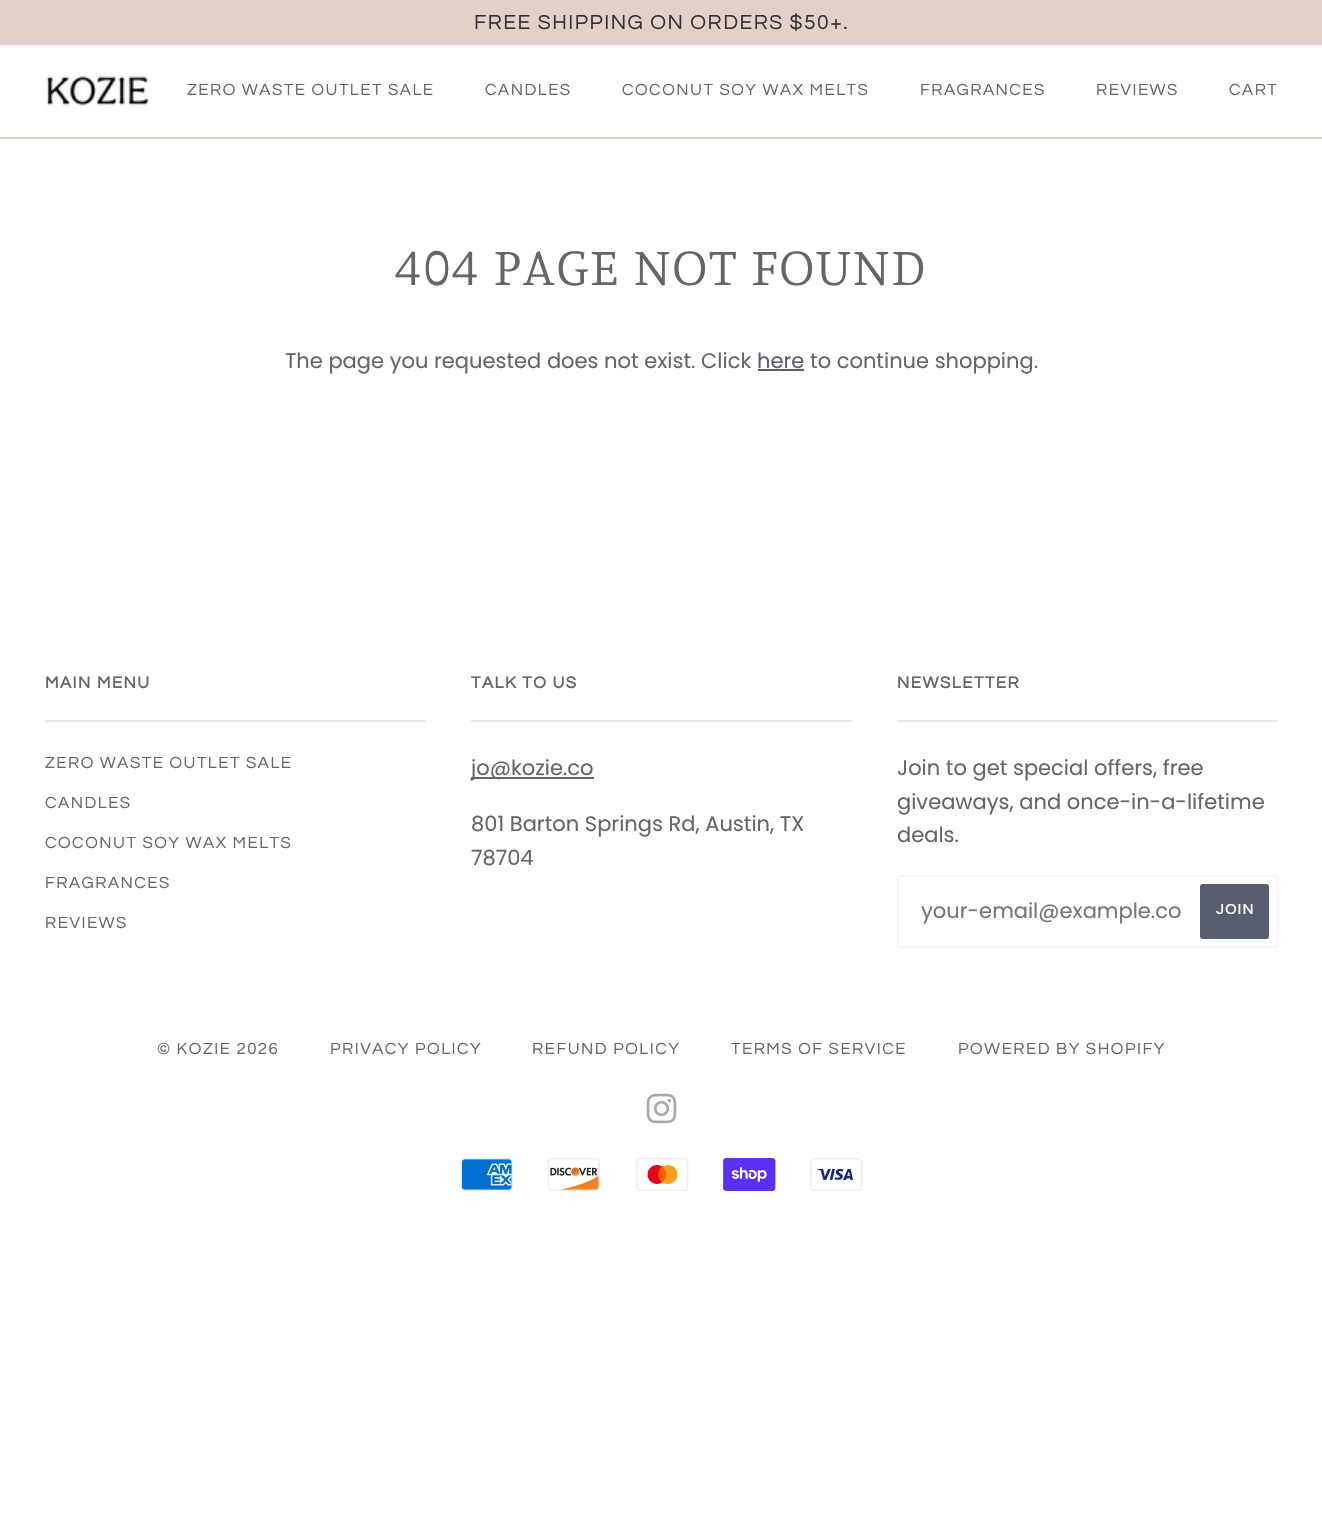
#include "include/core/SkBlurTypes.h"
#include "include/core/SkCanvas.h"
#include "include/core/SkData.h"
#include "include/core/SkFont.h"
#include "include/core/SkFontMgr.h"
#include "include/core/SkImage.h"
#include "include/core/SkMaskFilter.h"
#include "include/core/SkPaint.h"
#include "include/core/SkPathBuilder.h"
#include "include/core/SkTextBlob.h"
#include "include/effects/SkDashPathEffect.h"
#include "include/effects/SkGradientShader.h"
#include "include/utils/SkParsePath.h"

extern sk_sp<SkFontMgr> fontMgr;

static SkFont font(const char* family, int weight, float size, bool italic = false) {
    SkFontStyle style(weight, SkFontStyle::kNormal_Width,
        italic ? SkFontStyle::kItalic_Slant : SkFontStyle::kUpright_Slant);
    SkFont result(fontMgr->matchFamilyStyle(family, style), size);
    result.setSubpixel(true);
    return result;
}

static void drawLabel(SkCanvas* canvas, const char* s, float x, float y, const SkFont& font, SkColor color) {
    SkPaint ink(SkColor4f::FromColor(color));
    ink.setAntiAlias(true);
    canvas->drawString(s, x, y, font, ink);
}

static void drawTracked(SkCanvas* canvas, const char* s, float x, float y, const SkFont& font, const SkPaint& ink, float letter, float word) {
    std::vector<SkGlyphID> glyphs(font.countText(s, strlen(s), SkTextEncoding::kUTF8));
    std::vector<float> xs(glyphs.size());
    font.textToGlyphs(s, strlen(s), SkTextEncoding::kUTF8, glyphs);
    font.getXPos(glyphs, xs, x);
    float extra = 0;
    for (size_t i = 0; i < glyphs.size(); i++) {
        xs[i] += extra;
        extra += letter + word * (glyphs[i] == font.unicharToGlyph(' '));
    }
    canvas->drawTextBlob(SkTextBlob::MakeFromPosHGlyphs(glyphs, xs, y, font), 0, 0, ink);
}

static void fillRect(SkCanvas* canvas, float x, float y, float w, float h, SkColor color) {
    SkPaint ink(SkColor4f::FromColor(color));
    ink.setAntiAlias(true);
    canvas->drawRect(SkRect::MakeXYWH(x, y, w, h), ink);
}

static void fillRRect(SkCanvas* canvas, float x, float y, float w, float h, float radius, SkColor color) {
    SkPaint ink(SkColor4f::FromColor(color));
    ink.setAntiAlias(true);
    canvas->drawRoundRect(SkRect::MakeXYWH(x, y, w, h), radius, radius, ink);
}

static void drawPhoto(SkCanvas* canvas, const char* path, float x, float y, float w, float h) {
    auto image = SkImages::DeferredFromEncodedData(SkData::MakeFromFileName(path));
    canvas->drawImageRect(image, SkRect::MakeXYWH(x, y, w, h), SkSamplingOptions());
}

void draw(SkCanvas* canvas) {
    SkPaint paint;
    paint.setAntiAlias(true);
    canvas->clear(0xFFFFFFFF);
    fillRect(canvas, 0, 0, 1322, 45, 0xFFE3D1C9);
    SkFont font1 = font("Questrial", 400, 21);
    paint.setColor(0xFF323030);
    drawTracked(canvas, "FREE SHIPPING ON ORDERS $50+.", 474, 29, font1, paint, 1.5f, 0);
    fillRect(canvas, 0, 137, 1322, 2, 0xFFE3D1C9);
    drawPhoto(canvas, "assets/img1.png", 45, 74, 104, 35);
    SkFont font2 = font("Questrial", 400, 16.75f);
    paint.setColor(0xFF656565);
    drawTracked(canvas, "ZERO WASTE OUTLET SALE", 187, 95, font2, paint, 1.5f, 0);
    drawTracked(canvas, "CANDLES", 485, 95, font2, paint, 1.5f, 0);
    drawTracked(canvas, "COCONUT SOY WAX MELTS", 622, 95, font2, paint, 1.5f, 0);
    drawTracked(canvas, "FRAGRANCES", 920, 95, font2, paint, 1.5f, 0);
    drawTracked(canvas, "REVIEWS", 1096, 95, font2, paint, 1.5f, 0);
    drawTracked(canvas, "CART", 1229, 95, font2, paint, 1.5f, 0);
    SkFont font3 = font("Manuale", 300, 54);
    drawTracked(canvas, "404 PAGE NOT FOUND", 395, 285, font3, paint, 1.5f, 0);
    SkFont font4 = font("Poppins", 400, 21);
    drawLabel(canvas, "The page you requested does not exist. Click", 285, 368, font4, 0xFF656565);
    drawLabel(canvas, "here", 757, 368, font4, 0xFF585E71);
    fillRect(canvas, 758, 369, 46, 2, 0xFF585E71);
    drawLabel(canvas, "to continue shopping.", 810, 368, font4, 0xFF656565);
    SkFont font5 = font("Questrial", 700, 16.75f);
    drawTracked(canvas, "MAIN MENU", 45, 688, font5, paint, 1.5f, 0);
    fillRect(canvas, 45, 720, 381, 2, 0xFFE8E8E8);
    drawTracked(canvas, "ZERO WASTE OUTLET SALE", 45, 768, font2, paint, 1.5f, 0);
    drawTracked(canvas, "CANDLES", 45, 808, font2, paint, 1.5f, 0);
    drawTracked(canvas, "COCONUT SOY WAX MELTS", 45, 848, font2, paint, 1.5f, 0);
    drawTracked(canvas, "FRAGRANCES", 45, 888, font2, paint, 1.5f, 0);
    drawTracked(canvas, "REVIEWS", 45, 928, font2, paint, 1.5f, 0);
    drawTracked(canvas, "TALK TO US", 471, 688, font5, paint, 1.5f, 0);
    fillRect(canvas, 471, 720, 381, 2, 0xFFE8E8E8);
    fillRect(canvas, 471, 777, 123, 2, 0xFF656565);
    drawLabel(canvas, "jo@kozie.co", 471, 775, font4, 0xFF656565);
    drawLabel(canvas, "801 Barton Springs Rd, Austin, TX", 471, 831, font4, 0xFF656565);
    drawLabel(canvas, "78704", 471, 865, font4, 0xFF656565);
    drawTracked(canvas, "NEWSLETTER", 897, 688, font5, paint, 1.5f, 0);
    fillRect(canvas, 897, 720, 381, 2, 0xFFE8E8E8);
    drawLabel(canvas, "Join to get special offers, free", 897, 775, font4, 0xFF656565);
    drawLabel(canvas, "giveaways, and once-in-a-lifetime", 897, 809, font4, 0xFF656565);
    drawLabel(canvas, "deals.", 897, 842, font4, 0xFF656565);
    paint.setStroke(true);
    paint.setStrokeWidth(2);
    paint.setColor(0xFFF7F7F7);
    canvas->drawRoundRect(SkRect::MakeXYWH(898, 876, 379, 71), 2, 2, paint);
    drawLabel(canvas, "your-email@example.co", 921, 918, font4, 0xFF757575);
    fillRRect(canvas, 1200, 884, 69, 55, 3, 0xFF585E71);
    SkFont font6 = font("Questrial", 700, 14.5f);
    paint.setStroke(false);
    paint.setColor(0xFFFFFFFF);
    drawTracked(canvas, "JOIN", 1216, 914, font6, paint, 1.5f, 0);
    paint.setColor(0xFF656565);
    drawTracked(canvas, "© KOZIE 2026", 157, 1054, font2, paint, 1.5f, 0);
    drawTracked(canvas, "PRIVACY POLICY", 330, 1054, font2, paint, 1.5f, 0);
    drawTracked(canvas, "REFUND POLICY", 532, 1054, font2, paint, 1.5f, 0);
    drawTracked(canvas, "TERMS OF SERVICE", 731, 1054, font2, paint, 1.5f, 0);
    drawTracked(canvas, "POWERED BY SHOPIFY", 958, 1054, font2, paint, 1.5f, 0);
    drawPhoto(canvas, "assets/img2.png", 646, 1093, 31, 31);
    drawPhoto(canvas, "assets/img3.png", 461, 1158, 52, 33);
    drawPhoto(canvas, "assets/img4.png", 548, 1158, 52, 33);
    drawPhoto(canvas, "assets/img5.png", 636, 1158, 53, 33);
    drawPhoto(canvas, "assets/img6.png", 723, 1158, 53, 33);
    drawPhoto(canvas, "assets/img7.png", 810, 1158, 53, 33);
}
